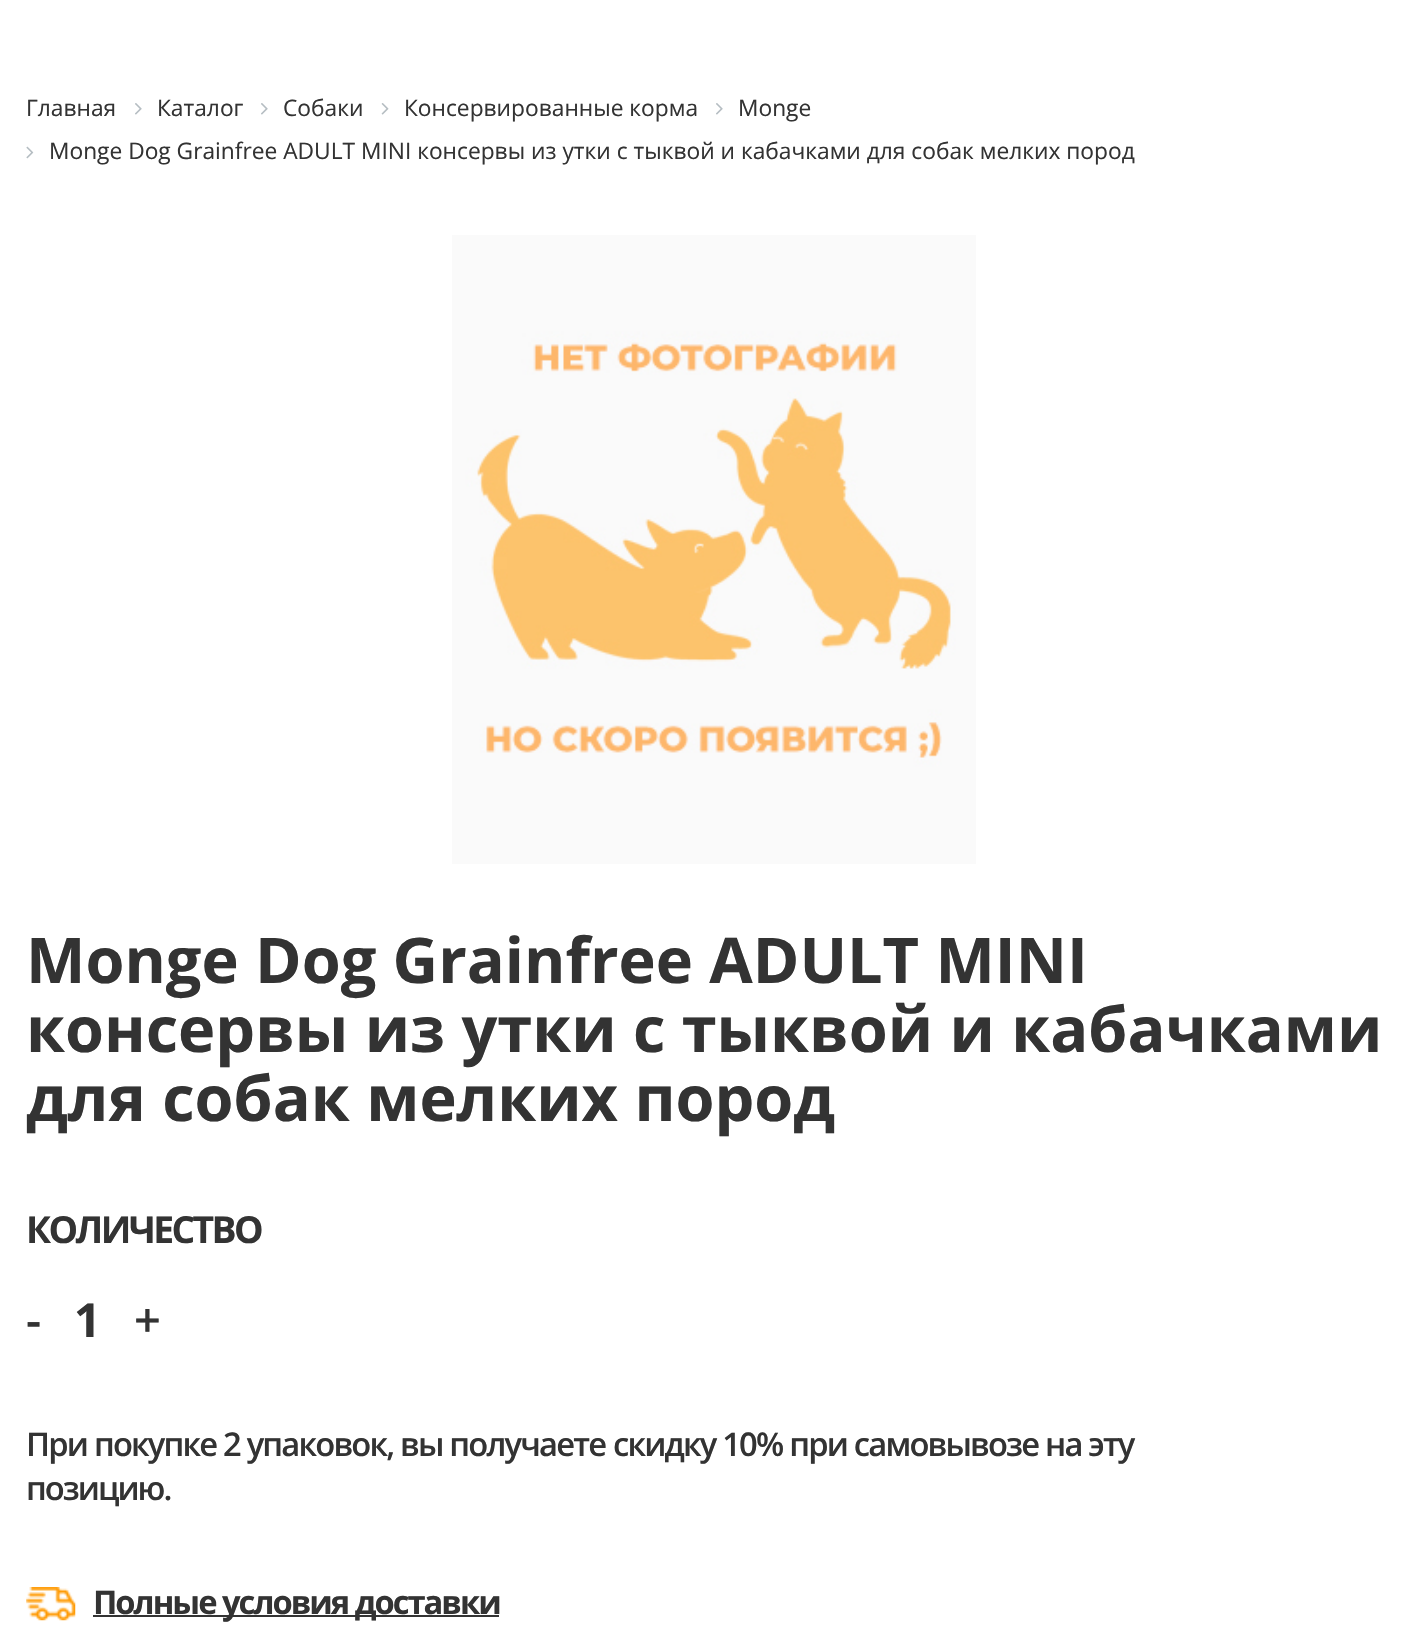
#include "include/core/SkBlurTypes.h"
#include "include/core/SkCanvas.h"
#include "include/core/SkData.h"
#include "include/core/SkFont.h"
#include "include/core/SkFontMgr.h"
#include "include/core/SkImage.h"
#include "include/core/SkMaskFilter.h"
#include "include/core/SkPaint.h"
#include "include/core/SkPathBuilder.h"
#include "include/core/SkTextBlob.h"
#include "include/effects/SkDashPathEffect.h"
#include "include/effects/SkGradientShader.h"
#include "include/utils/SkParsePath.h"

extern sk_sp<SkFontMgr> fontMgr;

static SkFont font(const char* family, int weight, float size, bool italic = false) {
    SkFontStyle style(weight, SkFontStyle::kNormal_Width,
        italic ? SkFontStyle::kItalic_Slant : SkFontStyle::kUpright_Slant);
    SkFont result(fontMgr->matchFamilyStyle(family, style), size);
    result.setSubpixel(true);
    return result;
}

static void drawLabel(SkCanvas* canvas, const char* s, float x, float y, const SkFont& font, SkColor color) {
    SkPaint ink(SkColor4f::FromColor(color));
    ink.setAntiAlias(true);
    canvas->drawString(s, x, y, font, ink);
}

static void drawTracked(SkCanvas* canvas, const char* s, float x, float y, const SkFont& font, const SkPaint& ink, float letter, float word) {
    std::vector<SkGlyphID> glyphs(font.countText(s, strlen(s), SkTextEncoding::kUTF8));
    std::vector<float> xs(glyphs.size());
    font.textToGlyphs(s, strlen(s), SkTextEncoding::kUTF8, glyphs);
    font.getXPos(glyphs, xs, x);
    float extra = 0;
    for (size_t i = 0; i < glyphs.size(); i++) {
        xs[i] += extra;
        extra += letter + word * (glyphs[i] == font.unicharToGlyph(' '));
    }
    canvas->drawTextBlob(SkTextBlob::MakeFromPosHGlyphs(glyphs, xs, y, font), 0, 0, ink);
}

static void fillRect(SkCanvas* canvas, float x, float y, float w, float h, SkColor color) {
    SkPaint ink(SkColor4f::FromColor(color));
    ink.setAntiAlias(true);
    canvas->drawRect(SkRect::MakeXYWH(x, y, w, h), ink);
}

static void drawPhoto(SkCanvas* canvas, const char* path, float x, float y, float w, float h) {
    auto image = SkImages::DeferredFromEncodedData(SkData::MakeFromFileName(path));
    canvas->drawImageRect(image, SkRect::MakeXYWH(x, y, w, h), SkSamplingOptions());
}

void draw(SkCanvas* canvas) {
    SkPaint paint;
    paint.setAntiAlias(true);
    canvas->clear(0xFFFFFFFF);
    SkFont font1 = font("Open Sans", 400, 22.75f);
    drawLabel(canvas, "Главная", 26, 116, font1, 0xFF333333);
    drawPhoto(canvas, "assets/img1.png", 135, 103, 7, 12);
    drawLabel(canvas, "Каталог", 157, 116, font1, 0xFF333333);
    drawPhoto(canvas, "assets/img1.png", 261, 103, 7, 12);
    drawLabel(canvas, "Собаки", 283, 116, font1, 0xFF333333);
    drawPhoto(canvas, "assets/img2.png", 381, 103, 8, 12);
    drawLabel(canvas, "Консервированные корма", 404, 116, font1, 0xFF333333);
    drawPhoto(canvas, "assets/img1.png", 716, 103, 7, 12);
    drawLabel(canvas, "Monge", 738, 116, font1, 0xFF333333);
    drawPhoto(canvas, "assets/img3.png", 26, 146, 8, 13);
    drawLabel(canvas, "Monge Dog Grainfree ADULT MINI консервы из утки с тыквой и кабачками для собак мелких пород", 49, 159, font1, 0xFF333333);
    drawPhoto(canvas, "assets/img4.png", 452, 235, 524, 629);
    SkFont font2 = font("Open Sans", 700, 63);
    drawLabel(canvas, "Monge Dog Grainfree ADULT MINI", 26, 983, font2, 0xFF333333);
    drawLabel(canvas, "консервы из утки с тыквой и кабачками", 26, 1052, font2, 0xFF333333);
    drawLabel(canvas, "для собак мелких пород", 26, 1121, font2, 0xFF333333);
    SkFont font3 = font("Open Sans", 700, 37.25f);
    paint.setColor(0xFF333333);
    drawTracked(canvas, "КОЛИЧЕСТВО", 26, 1243, font3, paint, -2.6f, 0);
    SkFont font4 = font("Open Sans", 600, 47);
    drawLabel(canvas, "-", 26, 1337, font4, 0xFF333333);
    SkFont font5 = font("Open Sans", 700, 47);
    drawLabel(canvas, "1", 74, 1337, font5, 0xFF333333);
    drawLabel(canvas, "+", 134, 1337, font4, 0xFF333333);
    SkFont font6 = font("Open Sans", 600, 32.7f);
    drawTracked(canvas, "При покупке 2 упаковок, вы получаете", 26, 1456, font6, paint, -1.8f, 0);
    drawTracked(canvas, "скидку 10% при самовывозе на эту", 613, 1456, font6, paint, -1.8f, 0);
    drawTracked(canvas, "позицию.", 26, 1500, font6, paint, -2, 0);
    drawPhoto(canvas, "assets/img5.png", 26, 1587, 50, 34);
    fillRect(canvas, 93, 1615, 406, 2, 0xFF333333);
    SkFont font7 = font("Open Sans", 700, 32.7f);
    drawTracked(canvas, "Полные условия доставки", 93, 1614, font7, paint, -2, 0);
}
